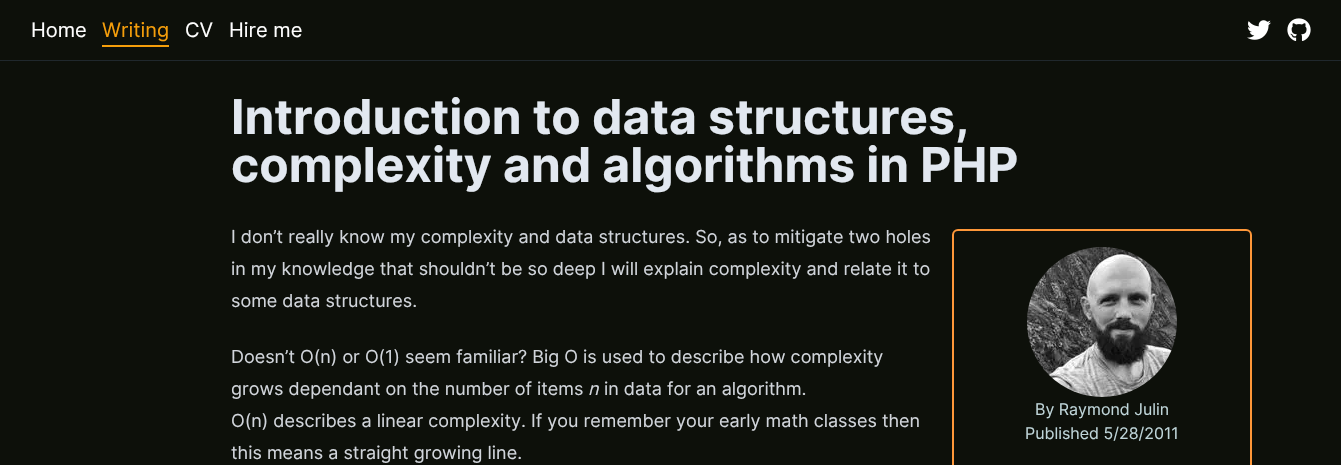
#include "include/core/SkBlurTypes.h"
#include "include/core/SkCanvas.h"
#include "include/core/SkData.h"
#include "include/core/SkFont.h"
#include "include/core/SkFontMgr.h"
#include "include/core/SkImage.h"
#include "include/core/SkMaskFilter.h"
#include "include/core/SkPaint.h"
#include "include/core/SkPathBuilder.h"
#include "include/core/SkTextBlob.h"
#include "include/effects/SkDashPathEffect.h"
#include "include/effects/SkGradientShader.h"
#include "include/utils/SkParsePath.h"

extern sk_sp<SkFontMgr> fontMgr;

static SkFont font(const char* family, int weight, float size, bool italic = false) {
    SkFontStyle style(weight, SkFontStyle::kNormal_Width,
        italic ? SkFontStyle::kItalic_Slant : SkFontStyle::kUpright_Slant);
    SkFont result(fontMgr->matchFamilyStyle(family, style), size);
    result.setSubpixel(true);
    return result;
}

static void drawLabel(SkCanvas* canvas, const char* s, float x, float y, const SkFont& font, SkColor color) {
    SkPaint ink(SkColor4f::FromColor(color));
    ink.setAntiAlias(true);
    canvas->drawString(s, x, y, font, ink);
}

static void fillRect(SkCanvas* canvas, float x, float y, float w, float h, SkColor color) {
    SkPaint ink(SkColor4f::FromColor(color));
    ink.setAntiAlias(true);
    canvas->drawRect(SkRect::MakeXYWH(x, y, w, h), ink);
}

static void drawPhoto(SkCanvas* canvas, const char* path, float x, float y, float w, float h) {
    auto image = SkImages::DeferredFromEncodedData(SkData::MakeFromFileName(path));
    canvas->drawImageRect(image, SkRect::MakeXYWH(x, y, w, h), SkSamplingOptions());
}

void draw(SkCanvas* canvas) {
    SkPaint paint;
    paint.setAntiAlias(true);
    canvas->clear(0xFF0D100A);
    fillRect(canvas, 0, 60, 1341, 1, 0xFF20282D);
    SkFont font1 = font("Inter", 400, 20);
    drawLabel(canvas, "Home", 31, 37, font1, 0xFFFFFFFF);
    drawLabel(canvas, "Writing", 102, 37, font1, 0xFFF59E0B);
    fillRect(canvas, 102, 45, 67, 2, 0xFFF59E0B);
    drawLabel(canvas, "CV", 185, 37, font1, 0xFFFFFFFF);
    drawLabel(canvas, "Hire me", 229, 37, font1, 0xFFFFFFFF);
    drawPhoto(canvas, "assets/img1.png", 1247, 20, 24, 20);
    drawPhoto(canvas, "assets/img2.png", 1287, 18, 24, 23);
    SkFont font2 = font("Inter", 700, 48);
    drawLabel(canvas, "Introduction to data structures,", 231, 134, font2, 0xFFE2E8F0);
    drawLabel(canvas, "complexity and algorithms in PHP", 231, 182, font2, 0xFFE2E8F0);
    SkFont font3 = font("Inter", 400, 18);
    drawLabel(canvas, "I don’t really know my complexity and data structures. So, as to mitigate two holes", 231, 243, font3, 0xFFD1D5DB);
    drawLabel(canvas, "in my knowledge that shouldn’t be so deep I will explain complexity and relate it to", 231, 275, font3, 0xFFD1D5DB);
    drawLabel(canvas, "some data structures.", 231, 307, font3, 0xFFD1D5DB);
    drawLabel(canvas, "Doesn’t O(n) or O(1) seem familiar? Big O is used to describe how complexity", 231, 363, font3, 0xFFD1D5DB);
    drawLabel(canvas, "grows dependant on the number of items", 231, 395, font3, 0xFFD1D5DB);
    SkFont font4 = font("Inter", 400, 18, true);
    drawLabel(canvas, "n", 588, 395, font4, 0xFFD1D5DB);
    drawLabel(canvas, "in data for an algorithm.", 604, 395, font3, 0xFFD1D5DB);
    drawLabel(canvas, "O(n) describes a linear complexity. If you remember your early math classes then", 231, 427, font3, 0xFFD1D5DB);
    drawLabel(canvas, "this means a straight growing line.", 231, 459, font3, 0xFFD1D5DB);
    paint.setStroke(true);
    paint.setStrokeWidth(2);
    paint.setColor(0xFFFE9739);
    canvas->drawRoundRect(SkRect::MakeXYWH(953, 230, 298, 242), 5, 5, paint);
    drawPhoto(canvas, "assets/img3.png", 1027, 247, 150, 150);
    SkFont font5 = font("Inter", 400, 16);
    drawLabel(canvas, "By Raymond Julin", 1035, 415, font5, 0xFFBFD5D9);
    drawLabel(canvas, "Published 5/28/2011", 1025, 439, font5, 0xFFBFD5D9);
}
